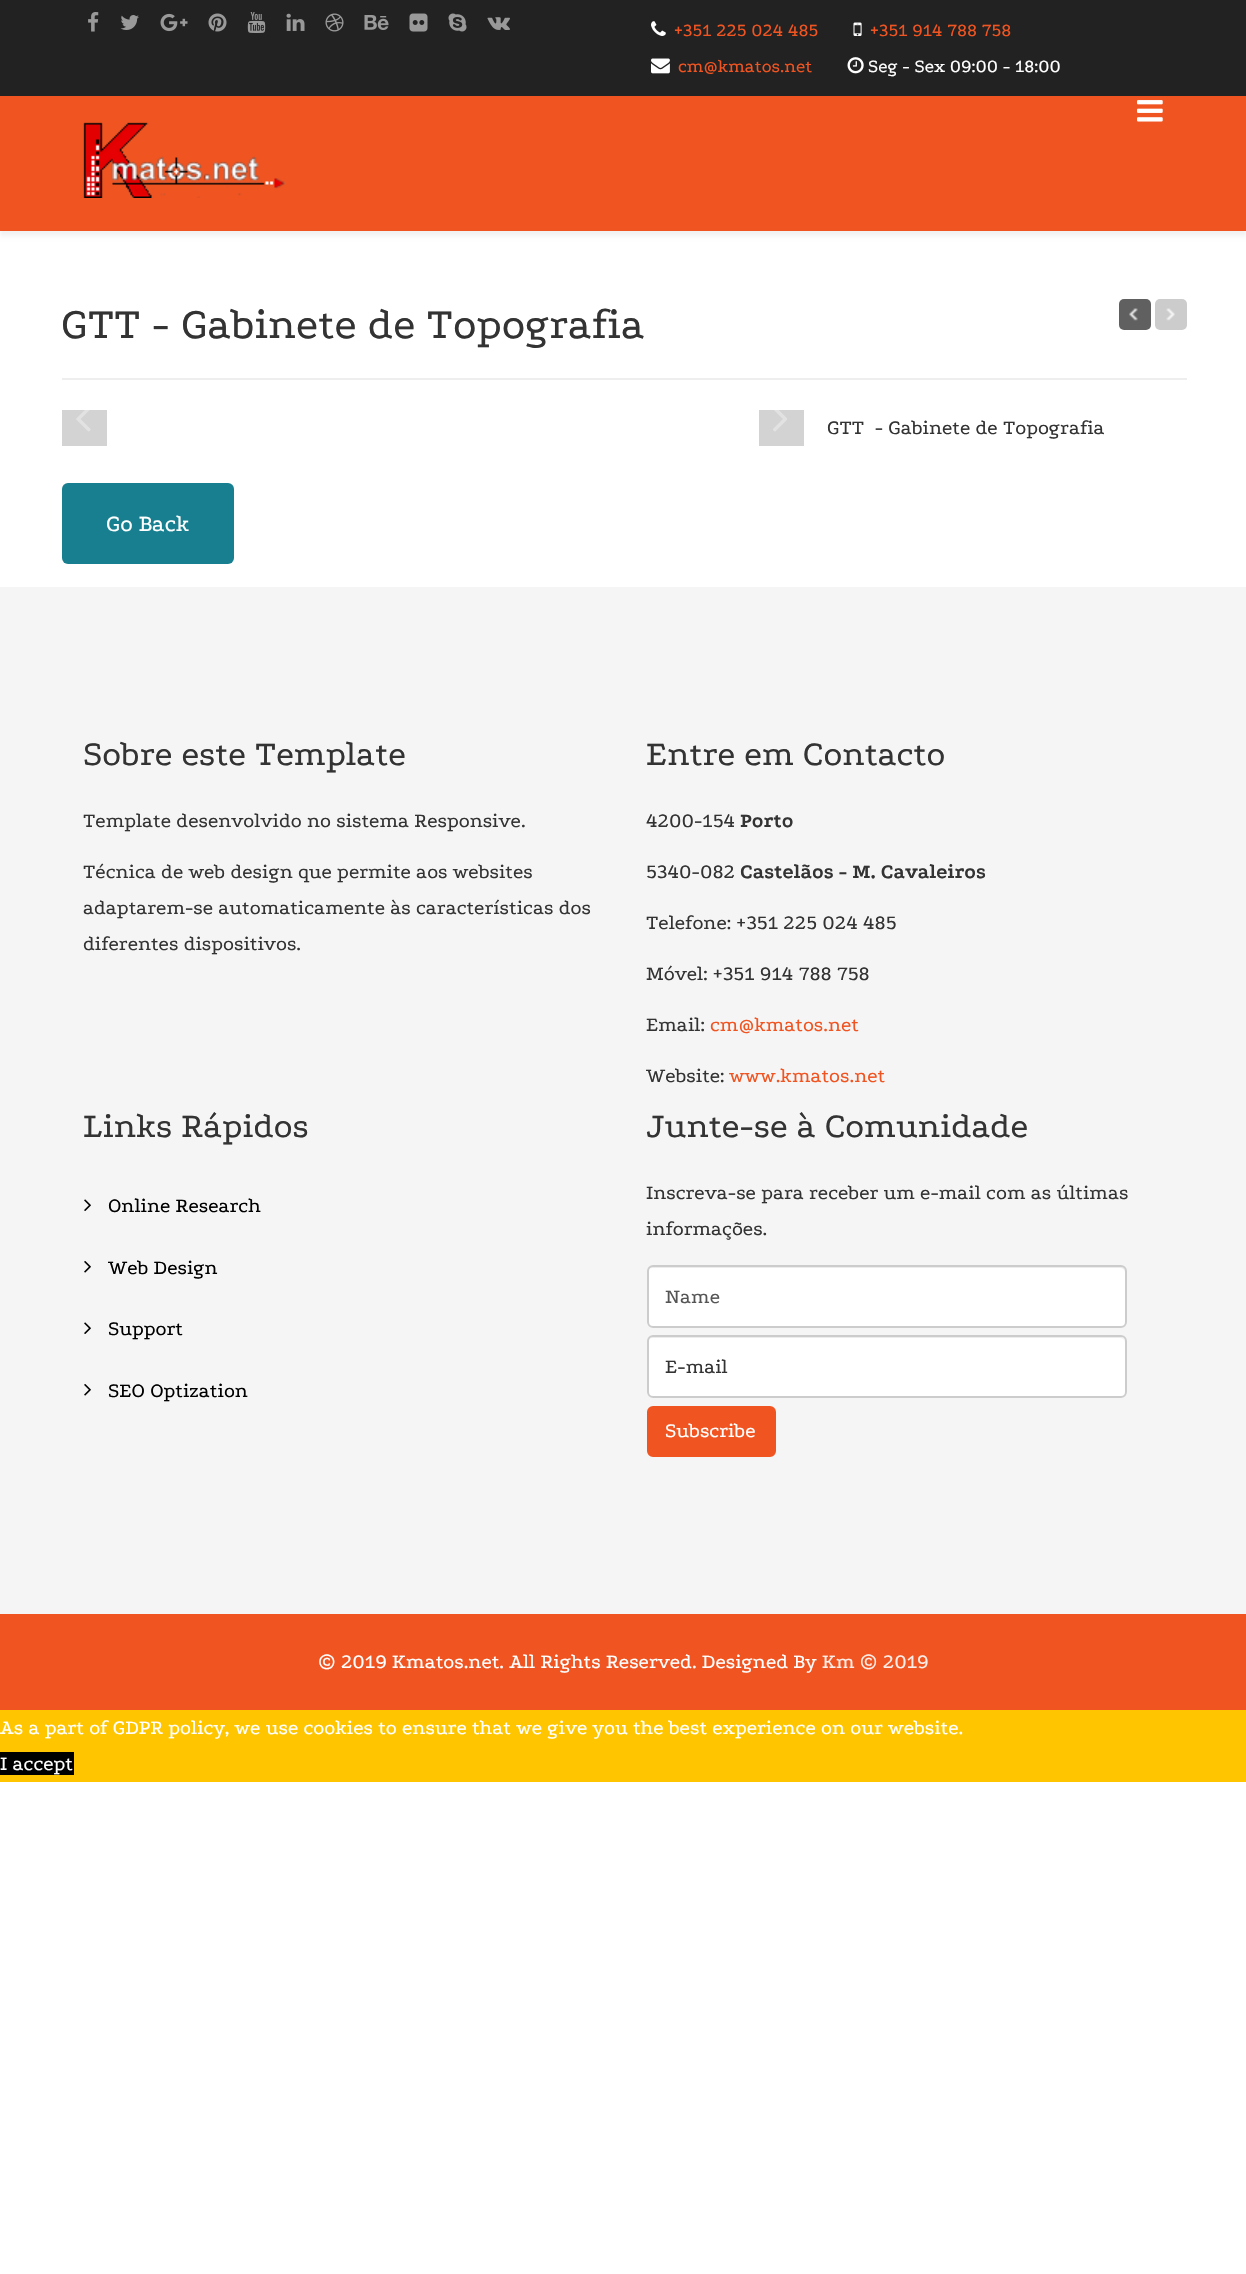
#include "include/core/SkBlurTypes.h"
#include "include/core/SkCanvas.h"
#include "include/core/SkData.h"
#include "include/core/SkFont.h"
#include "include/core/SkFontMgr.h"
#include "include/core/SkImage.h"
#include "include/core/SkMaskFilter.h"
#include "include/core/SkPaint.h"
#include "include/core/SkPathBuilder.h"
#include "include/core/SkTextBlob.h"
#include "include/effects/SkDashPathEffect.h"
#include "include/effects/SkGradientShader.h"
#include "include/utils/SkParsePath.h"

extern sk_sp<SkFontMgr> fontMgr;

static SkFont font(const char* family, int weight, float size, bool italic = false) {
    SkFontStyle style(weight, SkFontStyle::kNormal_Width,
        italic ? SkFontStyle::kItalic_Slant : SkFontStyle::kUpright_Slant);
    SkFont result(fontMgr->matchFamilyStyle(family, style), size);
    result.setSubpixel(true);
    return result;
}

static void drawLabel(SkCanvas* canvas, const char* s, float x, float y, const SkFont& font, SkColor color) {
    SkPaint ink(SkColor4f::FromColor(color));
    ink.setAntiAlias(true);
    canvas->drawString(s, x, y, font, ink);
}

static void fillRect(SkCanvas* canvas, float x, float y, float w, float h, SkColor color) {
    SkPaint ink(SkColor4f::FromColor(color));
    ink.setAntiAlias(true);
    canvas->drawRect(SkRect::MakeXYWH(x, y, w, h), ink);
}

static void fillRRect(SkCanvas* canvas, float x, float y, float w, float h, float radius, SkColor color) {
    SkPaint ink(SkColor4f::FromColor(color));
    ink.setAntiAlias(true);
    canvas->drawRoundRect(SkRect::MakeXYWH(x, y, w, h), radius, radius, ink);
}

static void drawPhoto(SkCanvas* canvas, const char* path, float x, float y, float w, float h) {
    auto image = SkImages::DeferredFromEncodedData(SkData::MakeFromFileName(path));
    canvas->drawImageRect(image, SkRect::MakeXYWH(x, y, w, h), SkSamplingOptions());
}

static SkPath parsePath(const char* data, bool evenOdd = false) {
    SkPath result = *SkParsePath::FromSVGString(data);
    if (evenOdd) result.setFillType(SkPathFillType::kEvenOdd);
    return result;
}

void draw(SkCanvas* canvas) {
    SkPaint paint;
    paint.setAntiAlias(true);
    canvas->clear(0xFFFFFFFF);
    fillRect(canvas, 0, 0, 1246, 96, 0xFF222222);
    drawPhoto(canvas, "assets/img1.png", 88, 12, 11, 20);
    drawPhoto(canvas, "assets/img2.png", 120, 15, 19, 15);
    drawPhoto(canvas, "assets/img3.png", 160, 13, 28, 19);
    drawPhoto(canvas, "assets/img4.png", 208, 13, 19, 19);
    drawPhoto(canvas, "assets/img5.png", 247, 12, 19, 21);
    drawPhoto(canvas, "assets/img6.png", 286, 13, 19, 18);
    drawPhoto(canvas, "assets/img7.png", 325, 13, 19, 19);
    drawPhoto(canvas, "assets/img8.png", 364, 15, 25, 15);
    drawPhoto(canvas, "assets/img9.png", 409, 13, 19, 19);
    drawPhoto(canvas, "assets/img10.png", 448, 13, 19, 19);
    drawPhoto(canvas, "assets/img11.png", 487, 17, 23, 13);
    drawPhoto(canvas, "assets/img12.png", 651, 21, 15, 15);
    SkFont font1 = font("Podkova", 400, 18.9f);
    drawLabel(canvas, "+351 225 024 485", 674, 36, font1, 0xFFF05421);
    drawPhoto(canvas, "assets/img13.png", 853, 22, 9, 14);
    drawLabel(canvas, "+351 914 788 758", 870, 36, font1, 0xFFF05421);
    drawPhoto(canvas, "assets/img14.png", 651, 58, 19, 16);
    drawLabel(canvas, "cm@kmatos.net", 678, 72, font1, 0xFFF05421);
    drawPhoto(canvas, "assets/img15.png", 847, 57, 17, 17);
    drawLabel(canvas, "Seg - Sex 09:00 - 18:00", 868, 72, font1, 0xFFFFFFFF);
    paint.setColor(0x0D000000);
    paint.setMaskFilter(SkMaskFilter::MakeBlur(kNormal_SkBlurStyle, 2));
    canvas->drawRect(SkRect::MakeXYWH(0, 101, 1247, 135), paint);
    paint.setMaskFilter(nullptr);
    fillRect(canvas, 0, 96, 1246, 135, 0xFFF05421);
    drawPhoto(canvas, "assets/img16.png", 1137, 100, 26, 22);
    drawPhoto(canvas, "assets/img17.png", 83, 122, 202, 76);
    fillRect(canvas, 62, 378, 1125, 2, 0xFFEEEEEE);
    SkFont font2 = font("Podkova", 400, 45);
    drawLabel(canvas, "GTT - Gabinete de Topografia", 61, 338, font2, 0xFF333333);
    fillRRect(canvas, 1119, 299, 32, 31, 5, 0xFF606060);
    drawPhoto(canvas, "assets/img18.png", 1129, 308, 9, 13);
    fillRRect(canvas, 1155, 299, 32, 31, 5, 0xFFCCCCCC);
    drawPhoto(canvas, "assets/img19.png", 1166, 308, 9, 13);
    fillRect(canvas, 62, 410, 45, 36, 0xFFD3D3D3);
    drawPhoto(canvas, "assets/img20.png", 76, 410, 15, 22);
    fillRect(canvas, 759, 410, 45, 36, 0xFFD3D3D3);
    drawPhoto(canvas, "assets/img21.png", 773, 410, 14, 22);
    SkFont font3 = font("Podkova", 400, 21);
    drawLabel(canvas, "GTT  - Gabinete de Topografia", 827, 434, font3, 0xFF333333);
    fillRRect(canvas, 62, 483, 172, 81, 6, 0xFF177F8F);
    SkFont font4 = font("Podkova", 400, 24);
    drawLabel(canvas, "Go Back", 106, 531, font4, 0xFFFFFFFF);
    fillRect(canvas, 0, 587, 1246, 1027, 0xFFF5F5F5);
    SkFont font5 = font("Podkova", 400, 36);
    drawLabel(canvas, "Sobre este Template", 83, 765, font5, 0xFF333333);
    drawLabel(canvas, "Template desenvolvido no sistema Responsive.", 83, 827, font3, 0xFF333333);
    drawLabel(canvas, "Técnica de web design que permite aos websites", 83, 878, font3, 0xFF333333);
    drawLabel(canvas, "adaptarem-se automaticamente às características dos", 83, 914, font3, 0xFF333333);
    drawLabel(canvas, "diferentes dispositivos.", 83, 950, font3, 0xFF333333);
    drawLabel(canvas, "Entre em Contacto", 646, 765, font5, 0xFF333333);
    drawLabel(canvas, "4200-154", 646, 827, font3, 0xFF333333);
    SkFont font6 = font("Podkova", 700, 21);
    drawLabel(canvas, "Porto", 740, 827, font6, 0xFF333333);
    drawLabel(canvas, "5340-082", 646, 878, font3, 0xFF333333);
    drawLabel(canvas, "Castelãos - M. Cavaleiros", 740, 878, font6, 0xFF333333);
    drawLabel(canvas, "Telefone: +351 225 024 485", 646, 929, font3, 0xFF333333);
    drawLabel(canvas, "Móvel: +351 914 788 758", 646, 980, font3, 0xFF333333);
    drawLabel(canvas, "Email:", 646, 1031, font3, 0xFF333333);
    drawLabel(canvas, "cm@kmatos.net", 710, 1031, font3, 0xFFF05421);
    drawLabel(canvas, "Website:", 646, 1082, font3, 0xFF333333);
    drawLabel(canvas, "www.kmatos.net", 729, 1082, font3, 0xFFF05421);
    drawLabel(canvas, "Links Rápidos", 83, 1137, font5, 0xFF333333);
    drawPhoto(canvas, "assets/img22.png", 84, 1199, 7, 12);
    drawLabel(canvas, "Online Research", 108, 1212, font3, 0xFF000000);
    drawPhoto(canvas, "assets/img23.png", 84, 1261, 7, 12);
    drawLabel(canvas, "Web Design", 108, 1274, font3, 0xFF000000);
    drawPhoto(canvas, "assets/img22.png", 84, 1322, 7, 12);
    drawLabel(canvas, "Support", 108, 1335, font3, 0xFF000000);
    drawPhoto(canvas, "assets/img23.png", 84, 1384, 7, 12);
    drawLabel(canvas, "SEO Optization", 108, 1397, font3, 0xFF000000);
    drawLabel(canvas, "Junte-se à Comunidade", 646, 1137, font5, 0xFF333333);
    drawLabel(canvas, "Inscreva-se para receber um e-mail com as últimas", 646, 1199, font3, 0xFF333333);
    drawLabel(canvas, "informações.", 646, 1235, font3, 0xFF333333);
    fillRRect(canvas, 647, 1265, 480, 63, 6, 0xFFFFFFFF);
    paint.setColor(0xFFECECEC);
    canvas->drawPath(parsePath("M652 1268H1120C1123 1268 1125 1270 1125 1272V1271C1125 1268 1123 1266 1120 1266H653C650 1266 648 1268 648 1271V1272C648 1270 650 1268 652 1268Z"), paint);
    paint.setStroke(true);
    paint.setStrokeWidth(2);
    paint.setColor(0xFFCCCCCC);
    canvas->drawRoundRect(SkRect::MakeXYWH(648, 1266, 478, 61), 5, 5, paint);
    drawLabel(canvas, "Name", 665, 1303, font3, 0xFF555555);
    fillRRect(canvas, 647, 1335, 480, 63, 6, 0xFFFFFFFF);
    paint.setStroke(false);
    paint.setColor(0xFFECECEC);
    canvas->drawPath(parsePath("M652 1338H1120C1123 1338 1125 1340 1125 1342C1125 1339 1123 1337 1120 1337H653C650 1337 648 1339 648 1342C648 1340 650 1338 652 1338Z"), paint);
    paint.setStroke(true);
    paint.setColor(0xFFCCCCCC);
    canvas->drawRoundRect(SkRect::MakeXYWH(648, 1336, 478, 61), 5, 5, paint);
    drawLabel(canvas, "E-mail", 665, 1373, font3, 0xFF333333);
    paint.setStroke(false);
    paint.setColor(0xFFF05421);
    canvas->drawRoundRect(SkRect::MakeXYWH(648, 1407, 127, 49), 5, 5, paint);
    paint.setStroke(true);
    canvas->drawRoundRect(SkRect::MakeXYWH(648, 1407, 127, 49), 5, 5, paint);
    drawLabel(canvas, "Subscribe", 665, 1437, font3, 0xFFFFFFFF);
    fillRect(canvas, 0, 1614, 1246, 96, 0xFFF05421);
    drawLabel(canvas, "© 2019 Kmatos.net. All Rights Reserved. Designed By", 318, 1668, font3, 0xFFFFFFFF);
    drawLabel(canvas, "Km © 2019", 822, 1668, font3, 0xFFFEEEE9);
    fillRect(canvas, 0, 1710, 1246, 72, 0xFFFFC600);
    drawLabel(canvas, "As a part of GDPR policy, we use cookies to ensure that we give you the best experience on our website.", 0, 1734, font3, 0xFFFFFFFF);
    fillRect(canvas, 0, 1752, 74, 23, 0xFF000000);
    drawLabel(canvas, "I accept", 0, 1770, font3, 0xFFFFFFFF);
}
